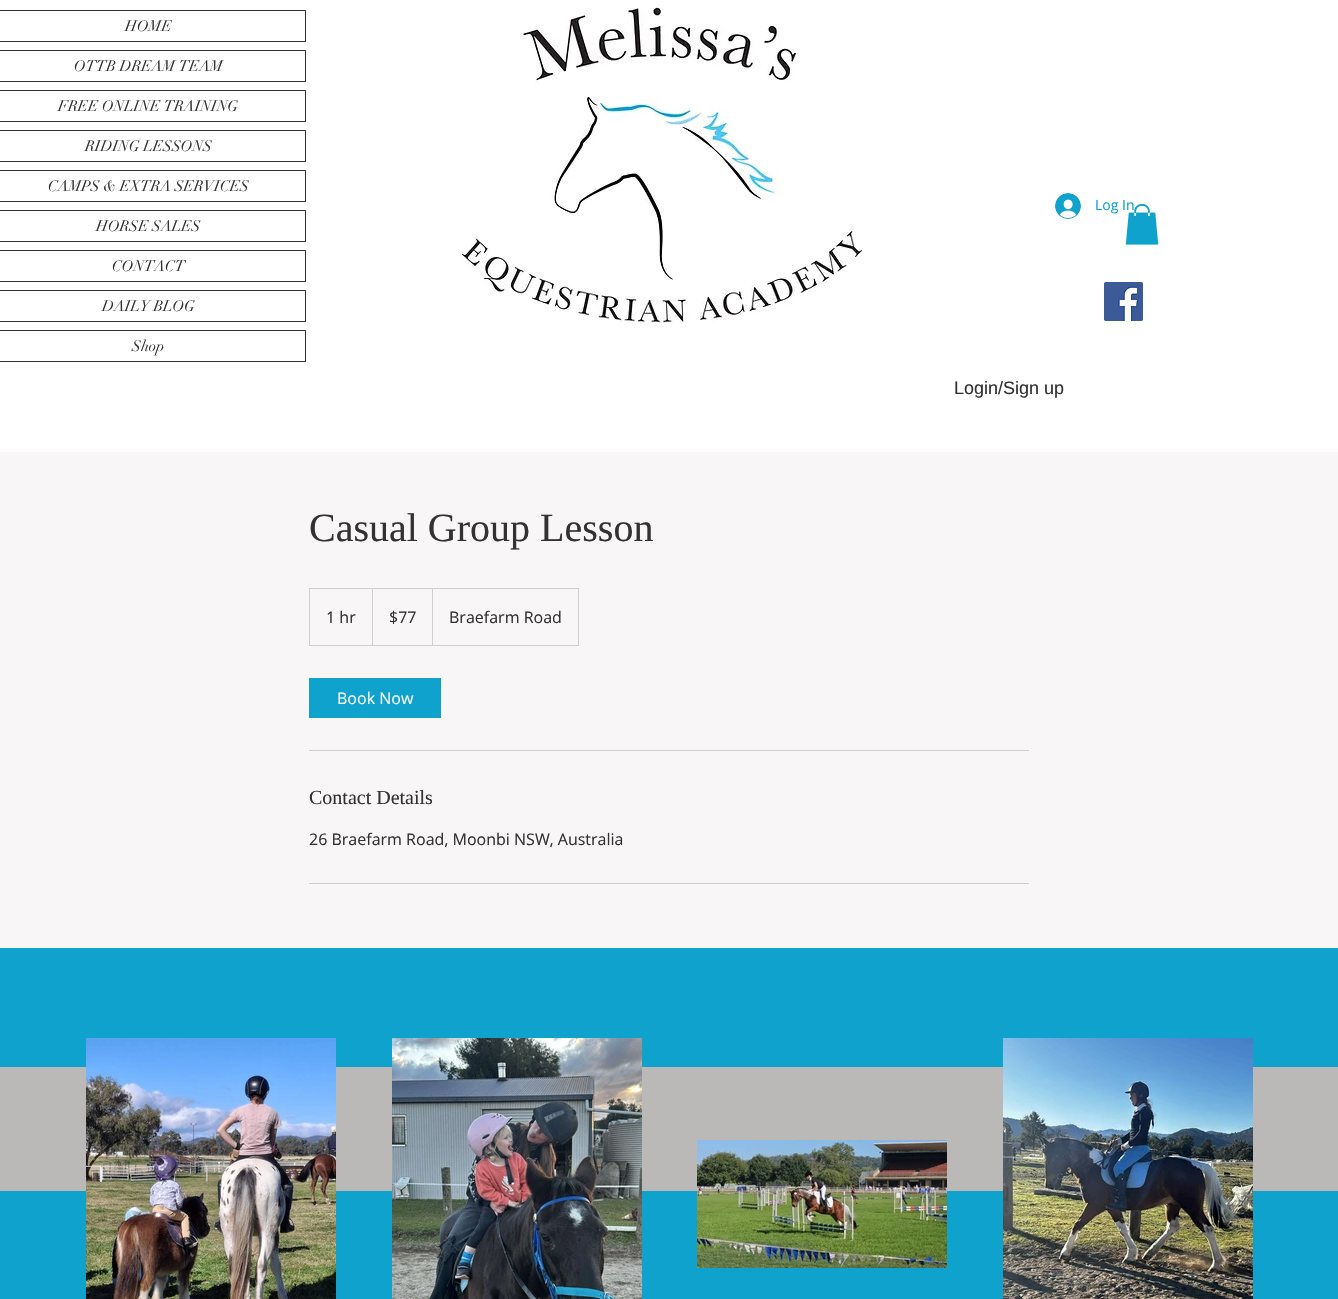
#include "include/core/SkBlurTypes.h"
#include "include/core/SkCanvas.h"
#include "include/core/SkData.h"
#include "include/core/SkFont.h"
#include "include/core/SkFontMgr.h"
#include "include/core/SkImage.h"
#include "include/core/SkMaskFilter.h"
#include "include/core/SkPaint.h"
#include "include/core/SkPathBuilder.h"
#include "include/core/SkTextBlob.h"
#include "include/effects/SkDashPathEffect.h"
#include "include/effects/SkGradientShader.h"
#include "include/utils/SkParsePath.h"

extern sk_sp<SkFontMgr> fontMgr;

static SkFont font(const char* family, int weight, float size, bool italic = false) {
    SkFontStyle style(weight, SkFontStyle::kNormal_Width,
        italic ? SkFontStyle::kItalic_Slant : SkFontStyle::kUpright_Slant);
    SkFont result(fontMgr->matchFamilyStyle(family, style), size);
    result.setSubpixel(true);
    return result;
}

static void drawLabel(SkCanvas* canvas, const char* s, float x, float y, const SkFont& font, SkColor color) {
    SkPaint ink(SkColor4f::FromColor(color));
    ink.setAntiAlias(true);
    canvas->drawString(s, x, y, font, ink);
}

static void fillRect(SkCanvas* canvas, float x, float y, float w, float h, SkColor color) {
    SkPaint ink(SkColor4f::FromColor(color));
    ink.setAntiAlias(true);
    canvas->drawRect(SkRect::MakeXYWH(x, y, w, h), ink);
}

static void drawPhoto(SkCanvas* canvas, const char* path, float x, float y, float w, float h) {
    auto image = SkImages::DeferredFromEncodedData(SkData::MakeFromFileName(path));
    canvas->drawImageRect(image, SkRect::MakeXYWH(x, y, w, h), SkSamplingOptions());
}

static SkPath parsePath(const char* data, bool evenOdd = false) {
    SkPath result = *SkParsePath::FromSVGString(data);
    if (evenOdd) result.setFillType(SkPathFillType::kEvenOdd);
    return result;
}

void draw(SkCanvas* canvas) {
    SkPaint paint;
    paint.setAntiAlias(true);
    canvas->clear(0xFF0EA2CC);
    fillRect(canvas, 0, 0, 1338, 452, 0xFFFFFFFF);
    paint.setStroke(true);
    paint.setStrokeWidth(1);
    paint.setColor(0xFF323232);
    canvas->drawRect(SkRect::MakeXYWH(-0.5f, 10.5f, 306, 31), paint);
    SkFont font1 = font("didot", 400, 15);
    drawLabel(canvas, "HOME", 125, 31, font1, 0xFF323232);
    canvas->drawRect(SkRect::MakeXYWH(-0.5f, 50.5f, 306, 31), paint);
    drawLabel(canvas, "OTTB DREAM TEAM", 74, 71, font1, 0xFF323232);
    canvas->drawRect(SkRect::MakeXYWH(-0.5f, 90.5f, 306, 31), paint);
    drawLabel(canvas, "FREE ONLINE TRAINING", 58, 111, font1, 0xFF323232);
    canvas->drawRect(SkRect::MakeXYWH(-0.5f, 130.5f, 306, 31), paint);
    drawLabel(canvas, "RIDING LESSONS", 85, 151, font1, 0xFF323232);
    canvas->drawRect(SkRect::MakeXYWH(-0.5f, 170.5f, 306, 31), paint);
    drawLabel(canvas, "CAMPS & EXTRA SERVICES", 48, 191, font1, 0xFF323232);
    canvas->drawRect(SkRect::MakeXYWH(-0.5f, 210.5f, 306, 31), paint);
    drawLabel(canvas, "HORSE SALES", 96, 231, font1, 0xFF323232);
    canvas->drawRect(SkRect::MakeXYWH(-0.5f, 250.5f, 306, 31), paint);
    drawLabel(canvas, "CONTACT", 112, 271, font1, 0xFF323232);
    canvas->drawRect(SkRect::MakeXYWH(-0.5f, 290.5f, 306, 31), paint);
    drawLabel(canvas, "DAILY BLOG", 102, 311, font1, 0xFF323232);
    canvas->drawRect(SkRect::MakeXYWH(-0.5f, 330.5f, 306, 31), paint);
    drawLabel(canvas, "Shop", 132, 351, font1, 0xFF323232);
    drawPhoto(canvas, "assets/img1.png", 459, 5, 404, 319);
    drawPhoto(canvas, "assets/img2.png", 1055, 193, 26, 26);
    SkFont font2 = font("Open Sans", 400, 14);
    drawLabel(canvas, "Log In", 1095, 210, font2, 0xFF0EA2CC);
    drawPhoto(canvas, "assets/img3.png", 1125, 204, 34, 41);
    drawPhoto(canvas, "assets/img4.png", 1104, 282, 39, 39);
    SkFont font3 = font("Liberation Sans", 400, 18);
    drawLabel(canvas, "Login/Sign up", 954, 394, font3, 0xFF323232);
    fillRect(canvas, 0, 452, 1338, 496, 0xFFF8F6F6);
    SkFont font4 = font("Liberation Serif", 400, 40);
    drawLabel(canvas, "Casual Group Lesson", 309, 541, font4, 0xFF323232);
    paint.setColor(0xFFD0CFCF);
    canvas->drawRect(SkRect::MakeXYWH(309.5f, 588.5f, 269, 57), paint);
    SkFont font5 = font("Open Sans", 400, 16);
    drawLabel(canvas, "1 hr", 326, 623, font5, 0xFF323232);
    paint.setStroke(false);
    canvas->drawPath(parsePath("M372 645V588L373 589V645Z"), paint);
    drawLabel(canvas, "$77", 389, 623, font5, 0xFF323232);
    canvas->drawPath(parsePath("M432 645V588L433 589V645Z"), paint);
    drawLabel(canvas, "Braefarm Road", 449, 623, font5, 0xFF323232);
    fillRect(canvas, 309, 678, 132, 40, 0xFF0EA2CC);
    drawLabel(canvas, "Book Now", 337, 704, font5, 0xFFF8F6F6);
    fillRect(canvas, 309, 750, 720, 1, 0xFFD0CFCF);
    SkFont font6 = font("Liberation Serif", 400, 20);
    drawLabel(canvas, "Contact Details", 309, 804, font6, 0xFF323232);
    drawLabel(canvas, "26 Braefarm Road, Moonbi NSW, Australia", 309, 845, font5, 0xFF323232);
    fillRect(canvas, 309, 883, 720, 1, 0xFFD0CFCF);
    fillRect(canvas, 0, 1067, 1338, 124, 0xFFBBB8B8);
    drawPhoto(canvas, "assets/img5.png", 86, 1038, 250, 261);
    drawPhoto(canvas, "assets/img6.png", 392, 1038, 250, 261);
    drawPhoto(canvas, "assets/img7.png", 697, 1140, 250, 128);
    drawPhoto(canvas, "assets/img8.png", 1003, 1038, 250, 261);
}
